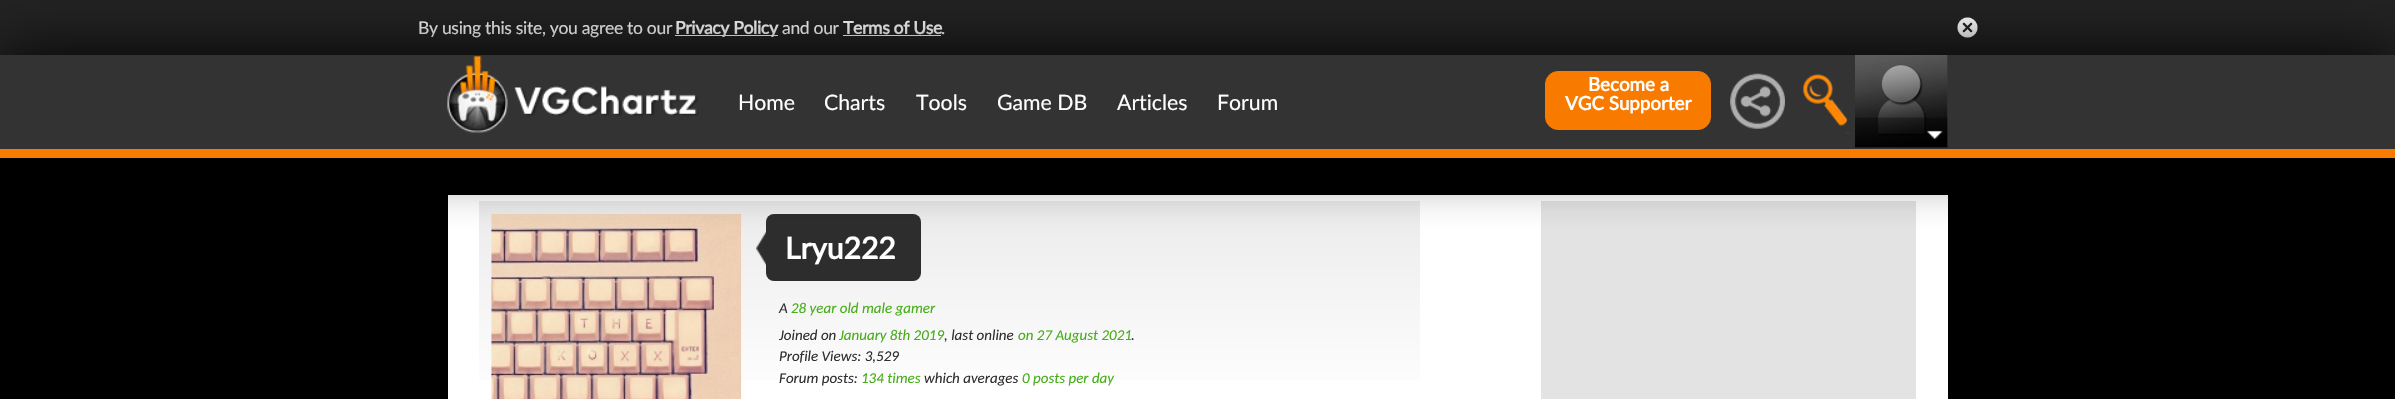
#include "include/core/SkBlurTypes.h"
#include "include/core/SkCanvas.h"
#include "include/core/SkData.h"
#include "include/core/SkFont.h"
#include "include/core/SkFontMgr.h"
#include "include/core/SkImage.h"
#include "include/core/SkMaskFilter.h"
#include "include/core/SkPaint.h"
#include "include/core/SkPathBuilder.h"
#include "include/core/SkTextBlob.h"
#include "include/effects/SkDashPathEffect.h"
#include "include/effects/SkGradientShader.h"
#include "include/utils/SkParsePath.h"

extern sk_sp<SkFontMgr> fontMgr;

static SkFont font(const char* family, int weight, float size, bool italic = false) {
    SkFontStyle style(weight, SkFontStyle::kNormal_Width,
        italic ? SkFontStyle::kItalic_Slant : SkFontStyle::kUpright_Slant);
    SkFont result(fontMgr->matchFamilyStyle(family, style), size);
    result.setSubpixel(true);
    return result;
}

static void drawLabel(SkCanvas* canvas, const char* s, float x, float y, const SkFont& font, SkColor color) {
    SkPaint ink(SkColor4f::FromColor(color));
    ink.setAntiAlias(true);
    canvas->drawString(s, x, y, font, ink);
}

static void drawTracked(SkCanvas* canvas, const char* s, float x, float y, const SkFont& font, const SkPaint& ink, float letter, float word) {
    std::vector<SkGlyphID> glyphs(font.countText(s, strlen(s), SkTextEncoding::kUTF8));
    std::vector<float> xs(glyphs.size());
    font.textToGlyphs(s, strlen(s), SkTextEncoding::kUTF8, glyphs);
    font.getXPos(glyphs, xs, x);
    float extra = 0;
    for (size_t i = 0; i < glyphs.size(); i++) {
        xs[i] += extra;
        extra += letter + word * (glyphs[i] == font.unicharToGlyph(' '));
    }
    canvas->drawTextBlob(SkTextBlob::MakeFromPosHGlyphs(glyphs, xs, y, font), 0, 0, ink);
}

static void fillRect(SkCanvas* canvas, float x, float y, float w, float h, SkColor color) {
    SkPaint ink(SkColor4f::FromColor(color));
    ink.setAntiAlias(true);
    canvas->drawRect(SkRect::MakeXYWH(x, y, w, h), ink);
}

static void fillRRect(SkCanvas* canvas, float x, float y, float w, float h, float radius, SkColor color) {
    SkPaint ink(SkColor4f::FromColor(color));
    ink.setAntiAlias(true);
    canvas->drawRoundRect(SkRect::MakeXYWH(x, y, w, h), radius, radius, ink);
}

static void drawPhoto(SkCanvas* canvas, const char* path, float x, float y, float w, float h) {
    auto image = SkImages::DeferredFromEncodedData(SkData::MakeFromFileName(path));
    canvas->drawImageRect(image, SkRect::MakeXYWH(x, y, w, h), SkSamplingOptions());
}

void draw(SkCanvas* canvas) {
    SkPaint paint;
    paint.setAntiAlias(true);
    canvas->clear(0xFF000000);
    fillRect(canvas, 0, 0, 2395, 55, 0xFF222222);
    SkFont font1 = font("Lato", 400, 17.5f);
    paint.setColor(0xFFFFFFFF);
    drawTracked(canvas, "By using this site, you agree to our", 418, 34, font1, paint, -0.3f, 0);
    fillRect(canvas, 675, 35, 103, 1, 0xFFFFFFFF);
    SkFont font2 = font("Lato", 700, 17.5f);
    drawTracked(canvas, "Privacy Policy", 675, 34, font2, paint, -0.3f, 0);
    drawTracked(canvas, "and our", 782, 34, font1, paint, -0.3f, 0);
    drawTracked(canvas, "Terms of Use", 843, 34, font2, paint, -0.3f, 0);
    drawTracked(canvas, ".", 941, 34, font1, paint, -0.3f, 0);
    fillRect(canvas, 843, 35, 98, 1, 0xFFFFFFFF);
    drawPhoto(canvas, "assets/img1.png", 1957, 17, 21, 21);
    fillRect(canvas, 448, 195, 1500, 204, 0xFFFFFFFF);
    {
        const SkColor colors[] = {0xFFEBEBEB, 0xFFFFFFFF, 0xFFFFFFFF};
        const float stops[] = {0, 0.5f, 1};
        const SkPoint ends[] = {{479, 201}, {479, 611}};
        paint.setShader(SkGradientShader::MakeLinear(ends, colors, stops, 3, SkTileMode::kClamp));
        paint.setAlpha(255);
    }
    canvas->drawRect(SkRect::MakeXYWH(479, 201, 941, 179), paint);
    drawPhoto(canvas, "assets/img7.png", 491, 214, 251, 185);
    fillRRect(canvas, 766, 214, 155, 67, 8, 0xFF2D2D2D);
    drawPhoto(canvas, "assets/img8.png", 756, 231, 10, 34);
    fillRect(canvas, 1541, 201, 375, 198, 0xFFE3E3E3);
    paint.setShader(nullptr);
    paint.setColor(0xFF000000);
    paint.setMaskFilter(SkMaskFilter::MakeBlur(kNormal_SkBlurStyle, 31));
    canvas->drawRect(SkRect::MakeXYWH(0, 56, 2395, 103), paint);
    paint.setMaskFilter(nullptr);
    fillRect(canvas, 0, 55, 2395, 94, 0xFF333333);
    drawPhoto(canvas, "assets/img2.png", 447, 56, 252, 77);
    SkFont font3 = font("Lato", 400, 21.25f);
    drawLabel(canvas, "Home", 738, 110, font3, 0xFFFFFFFF);
    drawLabel(canvas, "Charts", 824, 110, font3, 0xFFFFFFFF);
    drawLabel(canvas, "Tools", 916, 110, font3, 0xFFFFFFFF);
    drawLabel(canvas, "Game DB", 997, 110, font3, 0xFFFFFFFF);
    drawLabel(canvas, "Articles", 1117, 110, font3, 0xFFFFFFFF);
    drawLabel(canvas, "Forum", 1217, 110, font3, 0xFFFFFFFF);
    paint.setColor(0xFFF87B00);
    canvas->drawRoundRect(SkRect::MakeXYWH(1545.5f, 71.5f, 165, 58), 12.5f, 12.5f, paint);
    paint.setStroke(true);
    paint.setStrokeWidth(1);
    canvas->drawRoundRect(SkRect::MakeXYWH(1545.5f, 71.5f, 165, 58), 12.5f, 12.5f, paint);
    SkFont font4 = font("Lato", 700, 18.75f);
    drawLabel(canvas, "Become a", 1588, 91, font4, 0xFFFFFFFF);
    drawLabel(canvas, "VGC Supporter", 1565, 110, font4, 0xFFFFFFFF);
    drawPhoto(canvas, "assets/img3.png", 1730, 73, 55, 56);
    drawPhoto(canvas, "assets/img4.png", 1803, 74, 47, 60);
    drawPhoto(canvas, "assets/img5.png", 1855, 55, 93, 93);
    drawPhoto(canvas, "assets/img6.png", 1855, 117, 93, 31);
    fillRect(canvas, 0, 149, 2395, 9, 0xFFF97B00);
    SkFont font5 = font("Lato", 700, 30);
    drawLabel(canvas, "Lryu222", 785, 259, font5, 0xFFFFFFFF);
    SkFont font6 = font("Carlito", 400, 15, true);
    drawLabel(canvas, "A", 779, 313, font6, 0xFF2F2F2F);
    drawLabel(canvas, "28 year old male gamer", 791, 313, font6, 0xFF46AE18);
    drawLabel(canvas, "Joined on", 779, 340, font6, 0xFF2F2F2F);
    drawLabel(canvas, "January 8th 2019", 839, 340, font6, 0xFF46AE18);
    drawLabel(canvas, ", last online", 944, 340, font6, 0xFF2F2F2F);
    drawLabel(canvas, "on 27 August 2021", 1018, 340, font6, 0xFF46AE18);
    drawLabel(canvas, ".", 1131, 340, font6, 0xFF2F2F2F);
    drawLabel(canvas, "Profile Views: 3,529", 779, 361, font6, 0xFF2F2F2F);
    drawLabel(canvas, "Forum posts:", 779, 383, font6, 0xFF2F2F2F);
    drawLabel(canvas, "134 times", 861, 383, font6, 0xFF46AE18);
    drawLabel(canvas, "which averages", 924, 383, font6, 0xFF2F2F2F);
    drawLabel(canvas, "0 posts per day", 1022, 383, font6, 0xFF46AE18);
}
